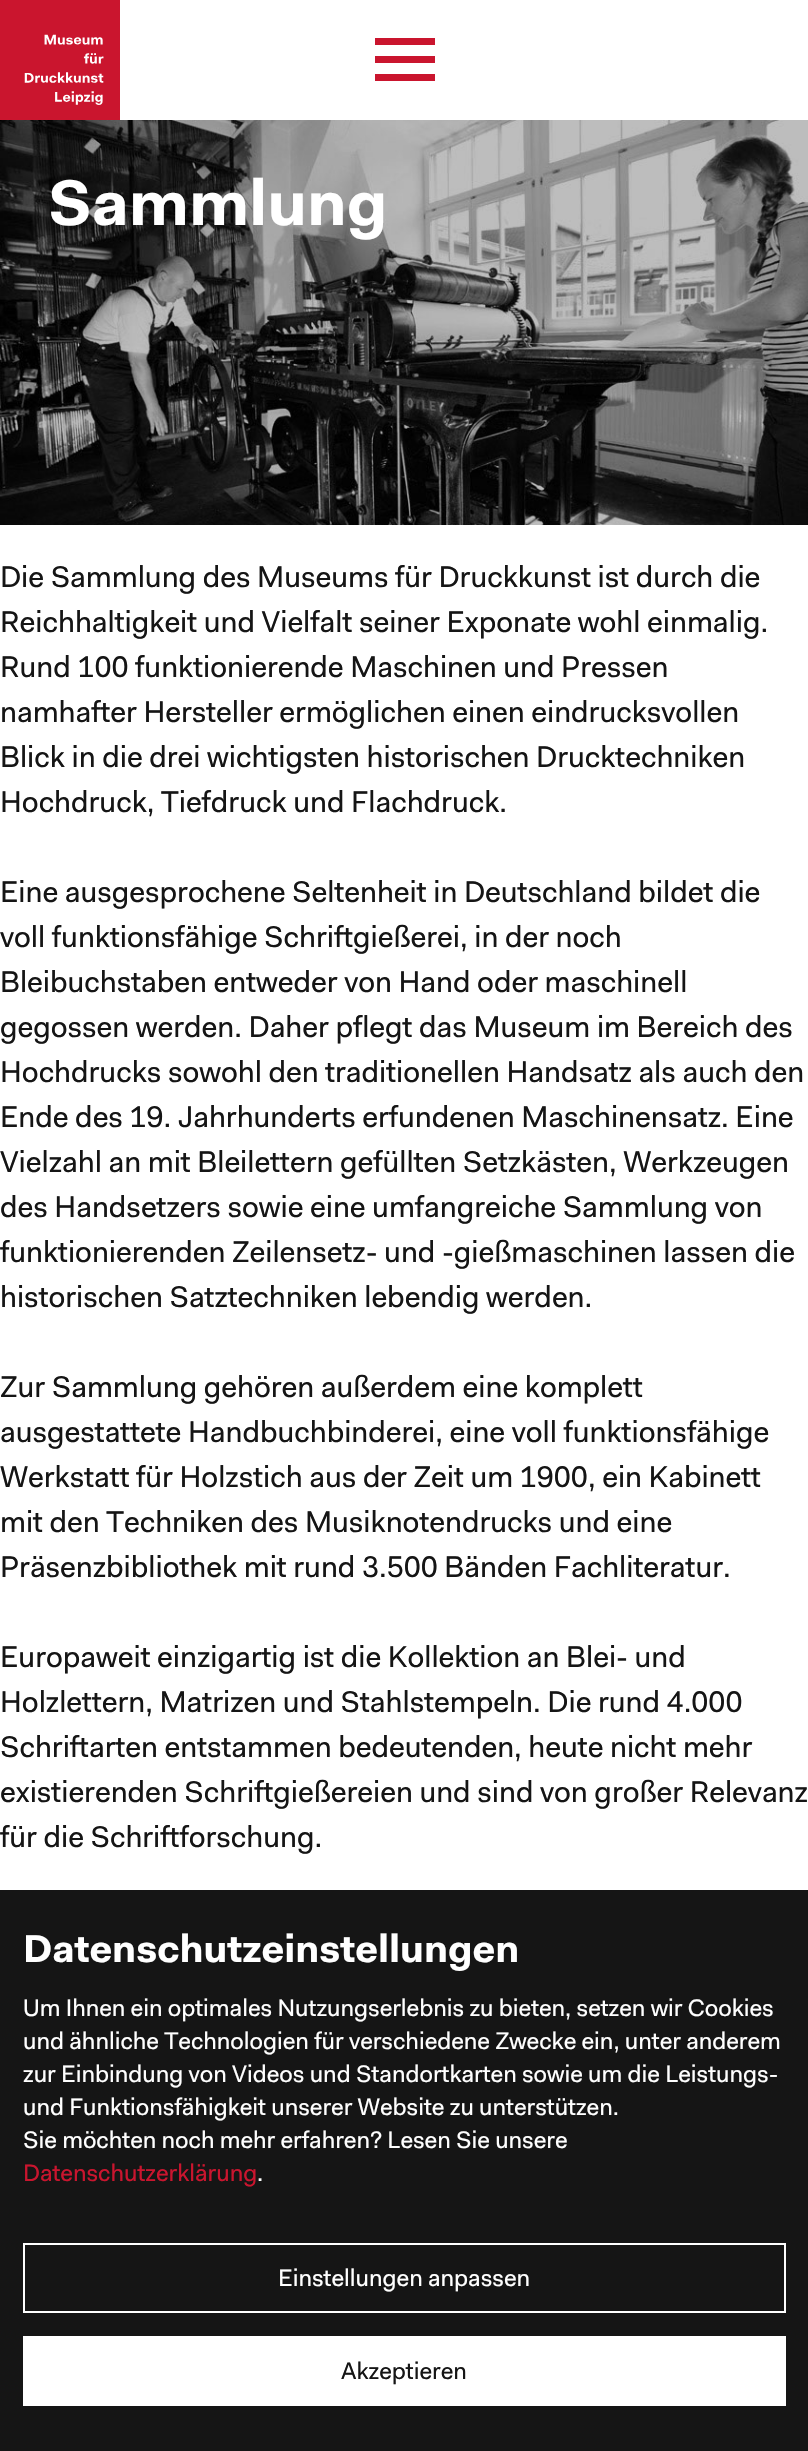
#include "include/core/SkBlurTypes.h"
#include "include/core/SkCanvas.h"
#include "include/core/SkData.h"
#include "include/core/SkFont.h"
#include "include/core/SkFontMgr.h"
#include "include/core/SkImage.h"
#include "include/core/SkMaskFilter.h"
#include "include/core/SkPaint.h"
#include "include/core/SkPathBuilder.h"
#include "include/core/SkTextBlob.h"
#include "include/effects/SkDashPathEffect.h"
#include "include/effects/SkGradientShader.h"
#include "include/utils/SkParsePath.h"

extern sk_sp<SkFontMgr> fontMgr;

static SkFont font(const char* family, int weight, float size, bool italic = false) {
    SkFontStyle style(weight, SkFontStyle::kNormal_Width,
        italic ? SkFontStyle::kItalic_Slant : SkFontStyle::kUpright_Slant);
    SkFont result(fontMgr->matchFamilyStyle(family, style), size);
    result.setSubpixel(true);
    return result;
}

static void drawLabel(SkCanvas* canvas, const char* s, float x, float y, const SkFont& font, SkColor color) {
    SkPaint ink(SkColor4f::FromColor(color));
    ink.setAntiAlias(true);
    canvas->drawString(s, x, y, font, ink);
}

static void fillRect(SkCanvas* canvas, float x, float y, float w, float h, SkColor color) {
    SkPaint ink(SkColor4f::FromColor(color));
    ink.setAntiAlias(true);
    canvas->drawRect(SkRect::MakeXYWH(x, y, w, h), ink);
}

static void drawPhoto(SkCanvas* canvas, const char* path, float x, float y, float w, float h) {
    auto image = SkImages::DeferredFromEncodedData(SkData::MakeFromFileName(path));
    canvas->drawImageRect(image, SkRect::MakeXYWH(x, y, w, h), SkSamplingOptions());
}

void draw(SkCanvas* canvas) {
    SkPaint paint;
    paint.setAntiAlias(true);
    canvas->clear(0xFFFFFFFF);
    drawPhoto(canvas, "assets/img1.png", 0, 0, 120, 120);
    fillRect(canvas, 375, 38, 60, 7, 0xFFCA152E);
    fillRect(canvas, 375, 56, 60, 7, 0xFFCA152E);
    fillRect(canvas, 375, 74, 60, 7, 0xFFCA152E);
    drawPhoto(canvas, "assets/img2.png", 0, 120, 808, 405);
    SkFont font1 = font("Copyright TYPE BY", 700, 64.5f);
    drawLabel(canvas, "Sammlung", 48, 225, font1, 0xFFFFFFFF);
    SkFont font2 = font("Copyright TYPE BY", 400, 30);
    drawLabel(canvas, "Die Sammlung des Museums für Druckkunst ist durch die", 0, 587, font2, 0xFF151515);
    drawLabel(canvas, "Reichhaltigkeit und Vielfalt seiner Exponate wohl einmalig.", 0, 632, font2, 0xFF151515);
    drawLabel(canvas, "Rund 100 funktionierende Maschinen und Pressen", 0, 677, font2, 0xFF151515);
    drawLabel(canvas, "namhafter Hersteller ermöglichen einen eindrucksvollen", 0, 722, font2, 0xFF151515);
    drawLabel(canvas, "Blick in die drei wichtigsten historischen Drucktechniken", 0, 767, font2, 0xFF151515);
    drawLabel(canvas, "Hochdruck, Tiefdruck und Flachdruck.", 0, 812, font2, 0xFF151515);
    drawLabel(canvas, "Eine ausgesprochene Seltenheit in Deutschland bildet die", 0, 902, font2, 0xFF151515);
    drawLabel(canvas, "voll funktionsfähige Schriftgießerei, in der noch", 0, 947, font2, 0xFF151515);
    drawLabel(canvas, "Bleibuchstaben entweder von Hand oder maschinell", 0, 992, font2, 0xFF151515);
    drawLabel(canvas, "gegossen werden. Daher pflegt das Museum im Bereich des", 0, 1037, font2, 0xFF151515);
    drawLabel(canvas, "Hochdrucks sowohl den traditionellen Handsatz als auch den", 0, 1082, font2, 0xFF151515);
    drawLabel(canvas, "Ende des 19. Jahrhunderts erfundenen Maschinensatz. Eine", 0, 1127, font2, 0xFF151515);
    drawLabel(canvas, "Vielzahl an mit Bleilettern gefüllten Setzkästen, Werkzeugen", 0, 1172, font2, 0xFF151515);
    drawLabel(canvas, "des Handsetzers sowie eine umfangreiche Sammlung von", 0, 1217, font2, 0xFF151515);
    drawLabel(canvas, "funktionierenden Zeilensetz- und -gießmaschinen lassen die", 0, 1262, font2, 0xFF151515);
    drawLabel(canvas, "historischen Satztechniken lebendig werden.", 0, 1307, font2, 0xFF151515);
    drawLabel(canvas, "Zur Sammlung gehören außerdem eine komplett", 0, 1397, font2, 0xFF151515);
    drawLabel(canvas, "ausgestattete Handbuchbinderei, eine voll funktionsfähige", 0, 1442, font2, 0xFF151515);
    drawLabel(canvas, "Werkstatt für Holzstich aus der Zeit um 1900, ein Kabinett", 0, 1487, font2, 0xFF151515);
    drawLabel(canvas, "mit den Techniken des Musiknotendrucks und eine", 0, 1532, font2, 0xFF151515);
    drawLabel(canvas, "Präsenzbibliothek mit rund 3.500 Bänden Fachliteratur.", 0, 1577, font2, 0xFF151515);
    drawLabel(canvas, "Europaweit einzigartig ist die Kollektion an Blei- und", 0, 1667, font2, 0xFF151515);
    drawLabel(canvas, "Holzlettern, Matrizen und Stahlstempeln. Die rund 4.000", 0, 1712, font2, 0xFF151515);
    drawLabel(canvas, "Schriftarten entstammen bedeutenden, heute nicht mehr", 0, 1757, font2, 0xFF151515);
    drawLabel(canvas, "existierenden Schriftgießereien und sind von großer Relevanz", 0, 1802, font2, 0xFF151515);
    drawLabel(canvas, "für die Schriftforschung.", 0, 1847, font2, 0xFF151515);
    fillRect(canvas, 0, 1890, 808, 561, 0xFF151515);
    SkFont font3 = font("Copyright TYPE BY", 700, 39);
    drawLabel(canvas, "Datenschutzeinstellungen", 23, 1962, font3, 0xFFFFFFFF);
    SkFont font4 = font("Copyright TYPE BY", 400, 24);
    drawLabel(canvas, "Um Ihnen ein optimales Nutzungserlebnis zu bieten, setzen wir Cookies", 23, 2016, font4, 0xFFFFFFFF);
    drawLabel(canvas, "und ähnliche Technologien für verschiedene Zwecke ein, unter anderem", 23, 2049, font4, 0xFFFFFFFF);
    drawLabel(canvas, "zur Einbindung von Videos und Standortkarten sowie um die Leistungs-", 23, 2082, font4, 0xFFFFFFFF);
    drawLabel(canvas, "und Funktionsfähigkeit unserer Website zu unterstützen.", 23, 2115, font4, 0xFFFFFFFF);
    drawLabel(canvas, "Sie möchten noch mehr erfahren? Lesen Sie unsere", 23, 2148, font4, 0xFFFFFFFF);
    drawLabel(canvas, "Datenschutzerklärung", 23, 2181, font4, 0xFFCA152E);
    drawLabel(canvas, ".", 257, 2181, font4, 0xFFFFFFFF);
    paint.setStroke(true);
    paint.setStrokeWidth(2);
    paint.setColor(0xFFFFFFFF);
    canvas->drawRect(SkRect::MakeXYWH(24, 2244, 761, 68), paint);
    drawLabel(canvas, "Einstellungen anpassen", 278, 2286, font4, 0xFFFFFFFF);
    fillRect(canvas, 23, 2336, 763, 70, 0xFFFFFFFF);
    drawLabel(canvas, "Akzeptieren", 341, 2379, font4, 0xFF151515);
}
